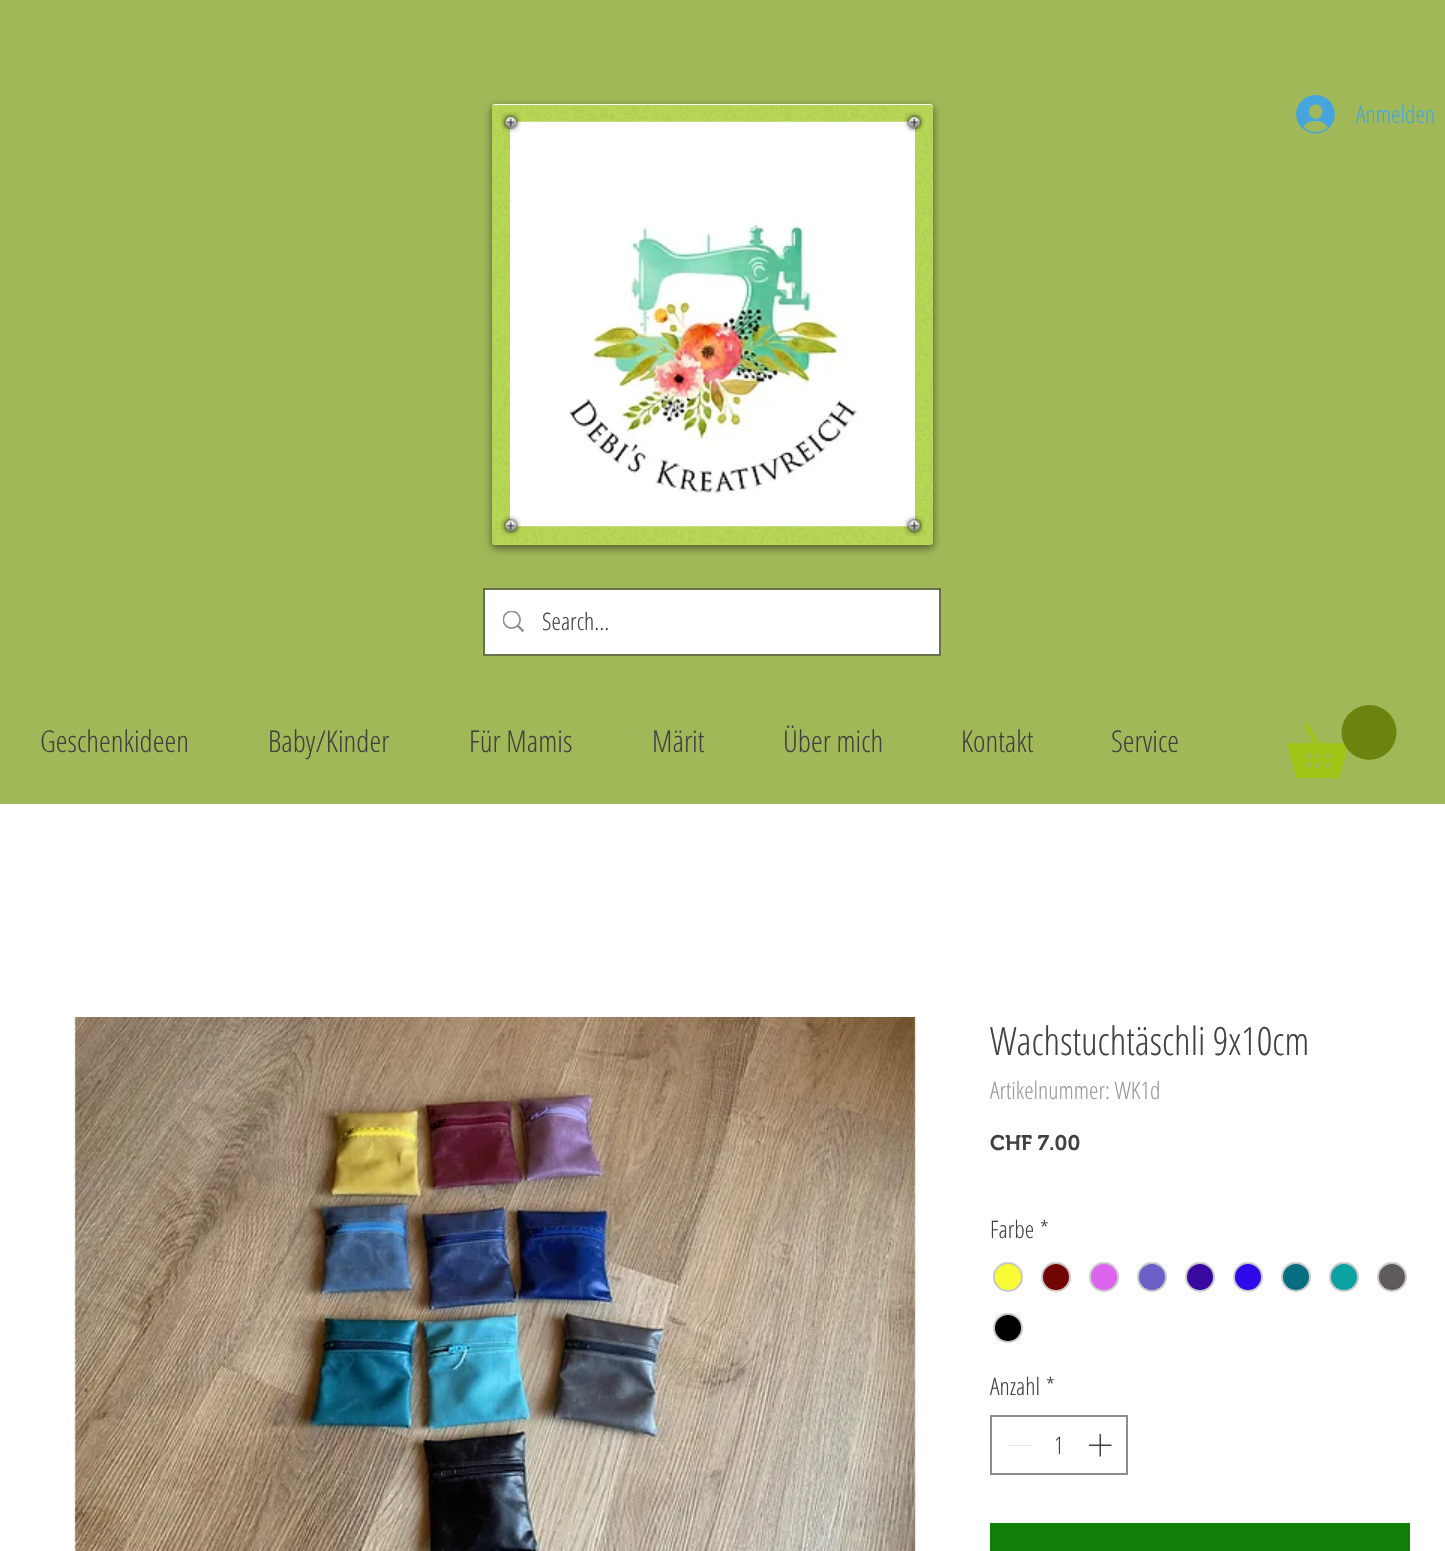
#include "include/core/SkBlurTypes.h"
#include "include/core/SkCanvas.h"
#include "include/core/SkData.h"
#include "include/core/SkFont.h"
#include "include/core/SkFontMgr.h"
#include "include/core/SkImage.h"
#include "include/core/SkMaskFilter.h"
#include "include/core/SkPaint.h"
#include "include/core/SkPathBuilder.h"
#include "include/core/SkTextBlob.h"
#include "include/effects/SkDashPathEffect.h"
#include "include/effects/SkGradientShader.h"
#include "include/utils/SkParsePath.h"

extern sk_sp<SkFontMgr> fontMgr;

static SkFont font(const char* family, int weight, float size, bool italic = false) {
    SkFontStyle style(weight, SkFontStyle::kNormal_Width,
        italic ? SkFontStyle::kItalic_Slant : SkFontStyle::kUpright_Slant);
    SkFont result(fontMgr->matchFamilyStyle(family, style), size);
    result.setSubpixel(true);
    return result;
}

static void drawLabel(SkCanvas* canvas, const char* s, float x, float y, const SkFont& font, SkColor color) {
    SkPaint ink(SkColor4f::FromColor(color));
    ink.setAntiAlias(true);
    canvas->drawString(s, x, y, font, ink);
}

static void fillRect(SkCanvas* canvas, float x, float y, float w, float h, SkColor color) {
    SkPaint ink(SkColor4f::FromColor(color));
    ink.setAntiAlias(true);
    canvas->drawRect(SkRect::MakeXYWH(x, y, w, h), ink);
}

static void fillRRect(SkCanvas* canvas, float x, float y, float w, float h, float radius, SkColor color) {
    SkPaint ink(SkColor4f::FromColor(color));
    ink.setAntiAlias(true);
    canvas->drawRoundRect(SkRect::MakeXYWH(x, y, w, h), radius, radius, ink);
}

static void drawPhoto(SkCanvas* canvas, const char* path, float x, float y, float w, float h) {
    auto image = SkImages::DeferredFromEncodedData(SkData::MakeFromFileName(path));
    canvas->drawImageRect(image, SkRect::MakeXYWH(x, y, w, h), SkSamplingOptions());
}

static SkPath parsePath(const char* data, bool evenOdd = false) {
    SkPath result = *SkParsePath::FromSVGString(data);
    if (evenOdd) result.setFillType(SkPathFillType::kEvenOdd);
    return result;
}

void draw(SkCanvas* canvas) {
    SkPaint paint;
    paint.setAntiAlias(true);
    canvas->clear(0xFFA1B858);
    paint.setColor(0x87000000);
    paint.setMaskFilter(SkMaskFilter::MakeBlur(kNormal_SkBlurStyle, 4));
    canvas->drawRoundRect(SkRect::MakeXYWH(492, 107, 441, 441), 3, 3, paint);
    paint.setMaskFilter(nullptr);
    fillRRect(canvas, 492, 104, 441, 441, 3, 0xFFBADA55);
    drawPhoto(canvas, "assets/img1.png", 492, 104, 441, 440);
    paint.setColor(0xEBFFFFFF);
    canvas->drawPath(parsePath("M495 105C493 105 492 106 492 108C492 106 493 104 495 104H931L933 106V108C933 106 932 105 930 105Z"), paint);
    drawPhoto(canvas, "assets/img4.png", 510, 121, 405, 406);
    drawPhoto(canvas, "assets/img2.png", 500, 112, 21, 21);
    drawPhoto(canvas, "assets/img3.png", 904, 112, 21, 21);
    drawPhoto(canvas, "assets/img5.png", 500, 515, 21, 21);
    drawPhoto(canvas, "assets/img6.png", 904, 515, 21, 21);
    drawPhoto(canvas, "assets/img7.png", 1296, 95, 39, 39);
    SkFont font1 = font("Open Sans Condensed", 300, 24);
    drawLabel(canvas, "Anmelden", 1356, 123, font1, 0xFF47A5DE);
    paint.setStroke(true);
    paint.setStrokeWidth(2);
    paint.setColor(0xFF67714A);
    canvas->drawRect(SkRect::MakeXYWH(484, 589, 456, 66), paint);
    fillRect(canvas, 485, 590, 454, 64, 0xFFFFFFFF);
    drawPhoto(canvas, "assets/img8.png", 503, 611, 21, 21);
    drawLabel(canvas, "Search...", 542, 630, font1, 0xFF414141);
    SkFont font2 = font("Open Sans Condensed", 300, 30);
    drawLabel(canvas, "Geschenkideen", 40, 752, font2, 0xFF414141);
    drawLabel(canvas, "Baby/Kinder", 268, 752, font2, 0xFF414141);
    drawLabel(canvas, "Für Mamis", 469, 752, font2, 0xFF414141);
    drawLabel(canvas, "Märit", 652, 752, font2, 0xFF414141);
    drawLabel(canvas, "Über mich", 783, 752, font2, 0xFF414141);
    drawLabel(canvas, "Kontakt", 961, 752, font2, 0xFF414141);
    drawLabel(canvas, "Service", 1111, 752, font2, 0xFF414141);
    drawPhoto(canvas, "assets/img9.png", 1287, 705, 110, 74);
    fillRect(canvas, 0, 804, 1445, 747, 0xFFFFFFFF);
    drawPhoto(canvas, "assets/img10.png", 74, 1017, 842, 534);
    SkFont font3 = font("Open Sans Condensed", 300, 39);
    drawLabel(canvas, "Wachstuchtäschli 9x10cm", 990, 1055, font3, 0xFF414141);
    drawLabel(canvas, "Artikelnummer: WK1d", 990, 1099, font1, 0xFF999997);
    SkFont font4 = font("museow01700", 600, 21);
    drawLabel(canvas, "CHF 7.00", 990, 1150, font4, 0xFF414141);
    drawLabel(canvas, "Farbe", 990, 1238, font1, 0xFF414141);
    drawLabel(canvas, "*", 1040, 1238, font1, 0xFF414141);
    paint.setStroke(false);
    paint.setColor(0xFFF6FB34);
    canvas->drawCircle(1008, 1277, 14, paint);
    paint.setStroke(true);
    paint.setColor(0xFFC9C9C9);
    canvas->drawCircle(1008, 1277, 14, paint);
    paint.setStroke(false);
    paint.setColor(0xFF710505);
    canvas->drawCircle(1056, 1277, 14, paint);
    paint.setStroke(true);
    paint.setColor(0xFFC9C9C9);
    canvas->drawCircle(1056, 1277, 14, paint);
    paint.setStroke(false);
    paint.setColor(0xFFDD64EF);
    canvas->drawCircle(1104, 1277, 14, paint);
    paint.setStroke(true);
    paint.setColor(0xFFC9C9C9);
    canvas->drawCircle(1104, 1277, 14, paint);
    paint.setStroke(false);
    paint.setColor(0xFF6A60C8);
    canvas->drawCircle(1152, 1277, 14, paint);
    paint.setStroke(true);
    paint.setColor(0xFFC9C9C9);
    canvas->drawCircle(1152, 1277, 14, paint);
    paint.setStroke(false);
    paint.setColor(0xFF39089E);
    canvas->drawCircle(1200, 1277, 14, paint);
    paint.setStroke(true);
    paint.setColor(0xFFC9C9C9);
    canvas->drawCircle(1200, 1277, 14, paint);
    paint.setStroke(false);
    paint.setColor(0xFF3009EB);
    canvas->drawCircle(1248, 1277, 14, paint);
    paint.setStroke(true);
    paint.setColor(0xFFC9C9C9);
    canvas->drawCircle(1248, 1277, 14, paint);
    paint.setStroke(false);
    paint.setColor(0xFF076D80);
    canvas->drawCircle(1296, 1277, 14, paint);
    paint.setStroke(true);
    paint.setColor(0xFFC9C9C9);
    canvas->drawCircle(1296, 1277, 14, paint);
    paint.setStroke(false);
    paint.setColor(0xFF0BA2A2);
    canvas->drawCircle(1344, 1277, 14, paint);
    paint.setStroke(true);
    paint.setColor(0xFFC9C9C9);
    canvas->drawCircle(1344, 1277, 14, paint);
    paint.setStroke(false);
    paint.setColor(0xFF5F5B5B);
    canvas->drawCircle(1392, 1277, 14, paint);
    paint.setStroke(true);
    paint.setColor(0xFFC9C9C9);
    canvas->drawCircle(1392, 1277, 14, paint);
    paint.setStroke(false);
    paint.setColor(0xFF000000);
    canvas->drawCircle(1008, 1328, 14, paint);
    paint.setStroke(true);
    paint.setColor(0xFFC9C9C9);
    canvas->drawCircle(1008, 1328, 14, paint);
    drawLabel(canvas, "Anzahl", 990, 1395, font1, 0xFF414141);
    drawLabel(canvas, "*", 1046, 1395, font1, 0xFF414141);
    paint.setColor(0xFF8D8D8D);
    canvas->drawRect(SkRect::MakeXYWH(991, 1416, 136, 58), paint);
    fillRect(canvas, 1008, 1445, 23, 1, 0xFFE3E3E3);
    drawLabel(canvas, "1", 1054, 1454, font1, 0xFF414141);
    drawPhoto(canvas, "assets/img11.png", 1089, 1434, 23, 23);
    fillRect(canvas, 990, 1523, 420, 28, 0xFF128008);
}
